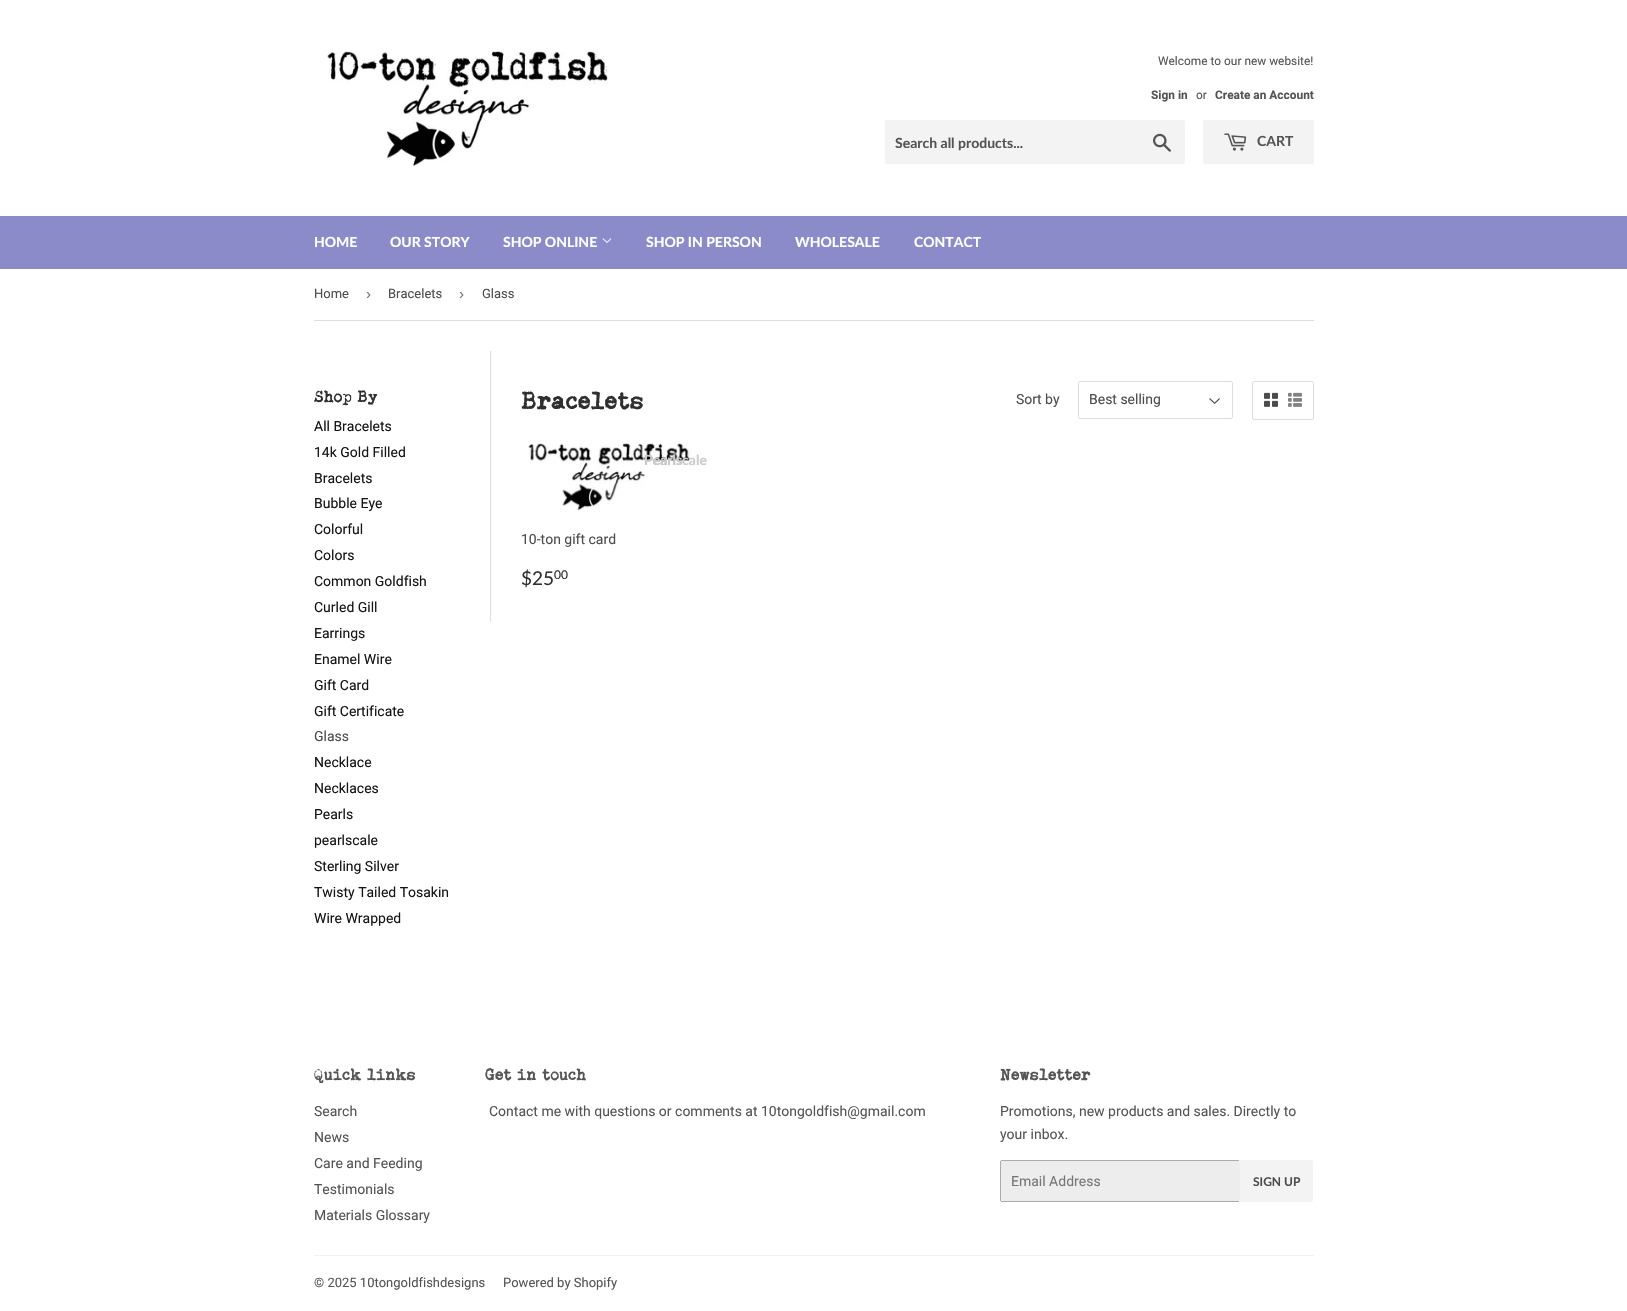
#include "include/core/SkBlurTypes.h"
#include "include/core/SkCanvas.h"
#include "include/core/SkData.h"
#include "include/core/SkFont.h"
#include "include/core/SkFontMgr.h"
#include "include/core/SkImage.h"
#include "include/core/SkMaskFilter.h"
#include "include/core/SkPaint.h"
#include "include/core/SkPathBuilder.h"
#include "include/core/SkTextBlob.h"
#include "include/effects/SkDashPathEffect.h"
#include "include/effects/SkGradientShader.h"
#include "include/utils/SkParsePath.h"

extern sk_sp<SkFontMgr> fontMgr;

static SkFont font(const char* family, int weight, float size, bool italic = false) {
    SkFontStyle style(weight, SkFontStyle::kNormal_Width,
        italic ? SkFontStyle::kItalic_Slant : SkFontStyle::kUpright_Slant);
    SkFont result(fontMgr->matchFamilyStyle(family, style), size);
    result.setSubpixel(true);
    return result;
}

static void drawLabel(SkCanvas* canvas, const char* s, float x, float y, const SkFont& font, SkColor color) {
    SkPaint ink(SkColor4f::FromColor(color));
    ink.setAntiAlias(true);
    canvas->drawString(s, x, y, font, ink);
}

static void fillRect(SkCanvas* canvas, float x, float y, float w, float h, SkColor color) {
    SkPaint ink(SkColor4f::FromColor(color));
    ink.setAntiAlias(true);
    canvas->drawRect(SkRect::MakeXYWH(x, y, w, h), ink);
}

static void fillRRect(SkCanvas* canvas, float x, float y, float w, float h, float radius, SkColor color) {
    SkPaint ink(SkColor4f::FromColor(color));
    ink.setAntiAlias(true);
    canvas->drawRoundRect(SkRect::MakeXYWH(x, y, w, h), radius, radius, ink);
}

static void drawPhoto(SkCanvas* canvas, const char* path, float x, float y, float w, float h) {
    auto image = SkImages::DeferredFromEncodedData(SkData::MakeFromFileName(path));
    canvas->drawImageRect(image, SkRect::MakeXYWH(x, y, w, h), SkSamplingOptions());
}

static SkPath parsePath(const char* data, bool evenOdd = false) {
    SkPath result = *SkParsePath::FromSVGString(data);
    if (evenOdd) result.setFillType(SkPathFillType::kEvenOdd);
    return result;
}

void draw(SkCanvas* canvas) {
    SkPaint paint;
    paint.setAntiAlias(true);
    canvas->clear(0xFFFFFFFF);
    drawPhoto(canvas, "assets/img1.png", 327, 50, 282, 117);
    SkFont font1 = font("Roboto", 400, 11.9f);
    drawLabel(canvas, "Welcome to our new website!", 1158, 65, font1, 0xFF545454);
    SkFont font2 = font("Roboto", 700, 11.9f);
    drawLabel(canvas, "Sign in", 1151, 99, font2, 0xFF545454);
    drawLabel(canvas, "or", 1196, 99, font1, 0xFF545454);
    drawLabel(canvas, "Create an Account", 1215, 99, font2, 0xFF545454);
    fillRRect(canvas, 885, 120, 300, 44, 2, 0xFFF3F3F3);
    SkFont font3 = font("Lato", 700, 14);
    drawLabel(canvas, "Search all products...", 895, 148, font3, 0xFF545454);
    drawPhoto(canvas, "assets/img2.png", 1153, 133, 18, 19);
    fillRRect(canvas, 1203, 120, 111, 44, 2, 0xFFF3F3F3);
    drawPhoto(canvas, "assets/img3.png", 1224, 133, 23, 18);
    drawLabel(canvas, "CART", 1257, 146, font3, 0xFF545454);
    fillRect(canvas, 0, 216, 1627, 53, 0xFF8B8BCA);
    drawLabel(canvas, "HOME", 314, 247, font3, 0xFFFFFFFF);
    drawLabel(canvas, "OUR STORY", 390, 247, font3, 0xFFFFFFFF);
    drawLabel(canvas, "SHOP ONLINE", 503, 247, font3, 0xFFFFFFFF);
    drawPhoto(canvas, "assets/img4.png", 602, 238, 10, 5);
    drawPhoto(canvas, "assets/img8.png", 528, 443, 164, 68);
    drawLabel(canvas, "Pearls", 644, 465, font3, 0xFFB5B5B5);
    drawLabel(canvas, "Pearlscale", 644, 465, font3, 0xFFCBCBCB);
    drawLabel(canvas, "SHOP IN PERSON", 646, 247, font3, 0xFFFFFFFF);
    drawLabel(canvas, "WHOLESALE", 795, 247, font3, 0xFFFFFFFF);
    drawLabel(canvas, "CONTACT", 914, 247, font3, 0xFFFFFFFF);
    fillRect(canvas, 314, 320, 1000, 1, 0xFFDEDEDE);
    SkFont font4 = font("Roboto", 400, 13);
    drawLabel(canvas, "Home", 314, 298, font4, 0xFF4E4B4B);
    SkFont font5 = font("Liberation Sans", 400, 15);
    drawLabel(canvas, "›", 366, 299, font5, 0xFF767676);
    drawLabel(canvas, "Bracelets", 388, 298, font4, 0xFF4E4B4B);
    drawLabel(canvas, "›", 459, 299, font5, 0xFF767676);
    drawLabel(canvas, "Glass", 482, 298, font4, 0xFF4E4B4B);
    SkFont font6 = font("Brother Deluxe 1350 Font", 400, 16);
    drawLabel(canvas, "Shop By", 314, 402, font6, 0xFF2F2F2F);
    SkFont font7 = font("Roboto", 400, 14);
    drawLabel(canvas, "All Bracelets", 314, 431, font7, 0xFF161414);
    drawLabel(canvas, "14k Gold Filled", 314, 457, font7, 0xFF161414);
    drawLabel(canvas, "Bracelets", 314, 483, font7, 0xFF161414);
    drawLabel(canvas, "Bubble Eye", 314, 508, font7, 0xFF161414);
    drawLabel(canvas, "Colorful", 314, 534, font7, 0xFF161414);
    drawLabel(canvas, "Colors", 314, 560, font7, 0xFF161414);
    drawLabel(canvas, "Common Goldfish", 314, 586, font7, 0xFF161414);
    drawLabel(canvas, "Curled Gill", 314, 612, font7, 0xFF161414);
    drawLabel(canvas, "Earrings", 314, 638, font7, 0xFF161414);
    drawLabel(canvas, "Enamel Wire", 314, 664, font7, 0xFF161414);
    drawLabel(canvas, "Gift Card", 314, 690, font7, 0xFF161414);
    drawLabel(canvas, "Gift Certificate", 314, 716, font7, 0xFF161414);
    drawLabel(canvas, "Glass", 314, 741, font7, 0xFF4E4B4B);
    drawLabel(canvas, "Necklace", 314, 767, font7, 0xFF161414);
    drawLabel(canvas, "Necklaces", 314, 793, font7, 0xFF161414);
    drawLabel(canvas, "Pearls", 314, 819, font7, 0xFF161414);
    drawLabel(canvas, "pearlscale", 314, 845, font7, 0xFF161414);
    drawLabel(canvas, "Sterling Silver", 314, 871, font7, 0xFF161414);
    drawLabel(canvas, "Twisty Tailed Tosakin", 314, 897, font7, 0xFF161414);
    drawLabel(canvas, "Wire Wrapped", 314, 923, font7, 0xFF161414);
    fillRect(canvas, 490, 351, 1, 271, 0xFFDEDEDE);
    SkFont font8 = font("Brother Deluxe 1350 Font", 400, 24.25f);
    drawLabel(canvas, "Bracelets", 521, 409, font8, 0xFF2F2F2F);
    drawLabel(canvas, "Sort by", 1016, 404, font7, 0xFF4E4B4B);
    drawPhoto(canvas, "assets/img5.png", 1209, 398, 11, 6);
    paint.setStroke(true);
    paint.setStrokeWidth(1);
    paint.setColor(0xFFDEDEDE);
    canvas->drawRoundRect(SkRect::MakeXYWH(1078.5f, 381.5f, 154, 37), 1.5f, 1.5f, paint);
    drawLabel(canvas, "Best selling", 1089, 404, font7, 0xFF4E4B4B);
    canvas->drawRoundRect(SkRect::MakeXYWH(1252.5f, 381.5f, 61, 38), 1.5f, 1.5f, paint);
    drawPhoto(canvas, "assets/img6.png", 1264, 392, 14, 15);
    drawPhoto(canvas, "assets/img7.png", 1288, 392, 14, 15);
    drawLabel(canvas, "10-ton gift card", 521, 544, font7, 0xFF4E4B4B);
    SkFont font9 = font("Lato", 400, 19);
    drawLabel(canvas, "$25", 521, 585, font9, 0xFF2F2F2F);
    SkFont font10 = font("Lato", 400, 12);
    drawLabel(canvas, "00", 554, 579, font10, 0xFF2F2F2F);
    drawLabel(canvas, "Quick links", 314, 1080, font6, 0xFF545454);
    drawLabel(canvas, "Search", 314, 1116, font7, 0xFF545454);
    drawLabel(canvas, "News", 314, 1142, font7, 0xFF545454);
    drawLabel(canvas, "Care and Feeding", 314, 1168, font7, 0xFF545454);
    drawLabel(canvas, "Testimonials", 314, 1194, font7, 0xFF545454);
    drawLabel(canvas, "Materials Glossary", 314, 1220, font7, 0xFF545454);
    drawLabel(canvas, "Get in touch", 485, 1080, font6, 0xFF545454);
    drawLabel(canvas, "Contact me with questions or comments at 10tongoldfish@gmail.com", 489, 1116, font7, 0xFF545454);
    drawLabel(canvas, "Newsletter", 1000, 1080, font6, 0xFF545454);
    drawLabel(canvas, "Promotions, new products and sales. Directly to", 1000, 1116, font7, 0xFF545454);
    drawLabel(canvas, "your inbox.", 1000, 1139, font7, 0xFF545454);
    fillRRect(canvas, 1000, 1160, 240, 42, 2, 0xFFEDEDED);
    fillRect(canvas, 1001, 1160, 238, 1, 0xFFABABAB);
    fillRect(canvas, 1001, 1201, 238, 1, 0xFFABABAB);
    fillRect(canvas, 1000, 1161, 1, 40, 0xFFABABAB);
    drawLabel(canvas, "Email Address", 1011, 1186, font7, 0xFF767676);
    paint.setStroke(false);
    paint.setColor(0xFFF3F3F3);
    canvas->drawPath(parsePath("M1240 1160H1311C1312 1160 1313 1161 1313 1162V1200C1313 1201 1312 1202 1311 1202H1240Z"), paint);
    SkFont font11 = font("Lato", 700, 12);
    drawLabel(canvas, "SIGN UP", 1253, 1186, font11, 0xFF4E4B4B);
    fillRect(canvas, 314, 1255, 1000, 1, 0xFFF2F2F2);
    drawLabel(canvas, "© 2025 10tongoldfishdesigns", 314, 1287, font4, 0xFF545454);
    drawLabel(canvas, "Powered by Shopify", 503, 1287, font4, 0xFF545454);
}
